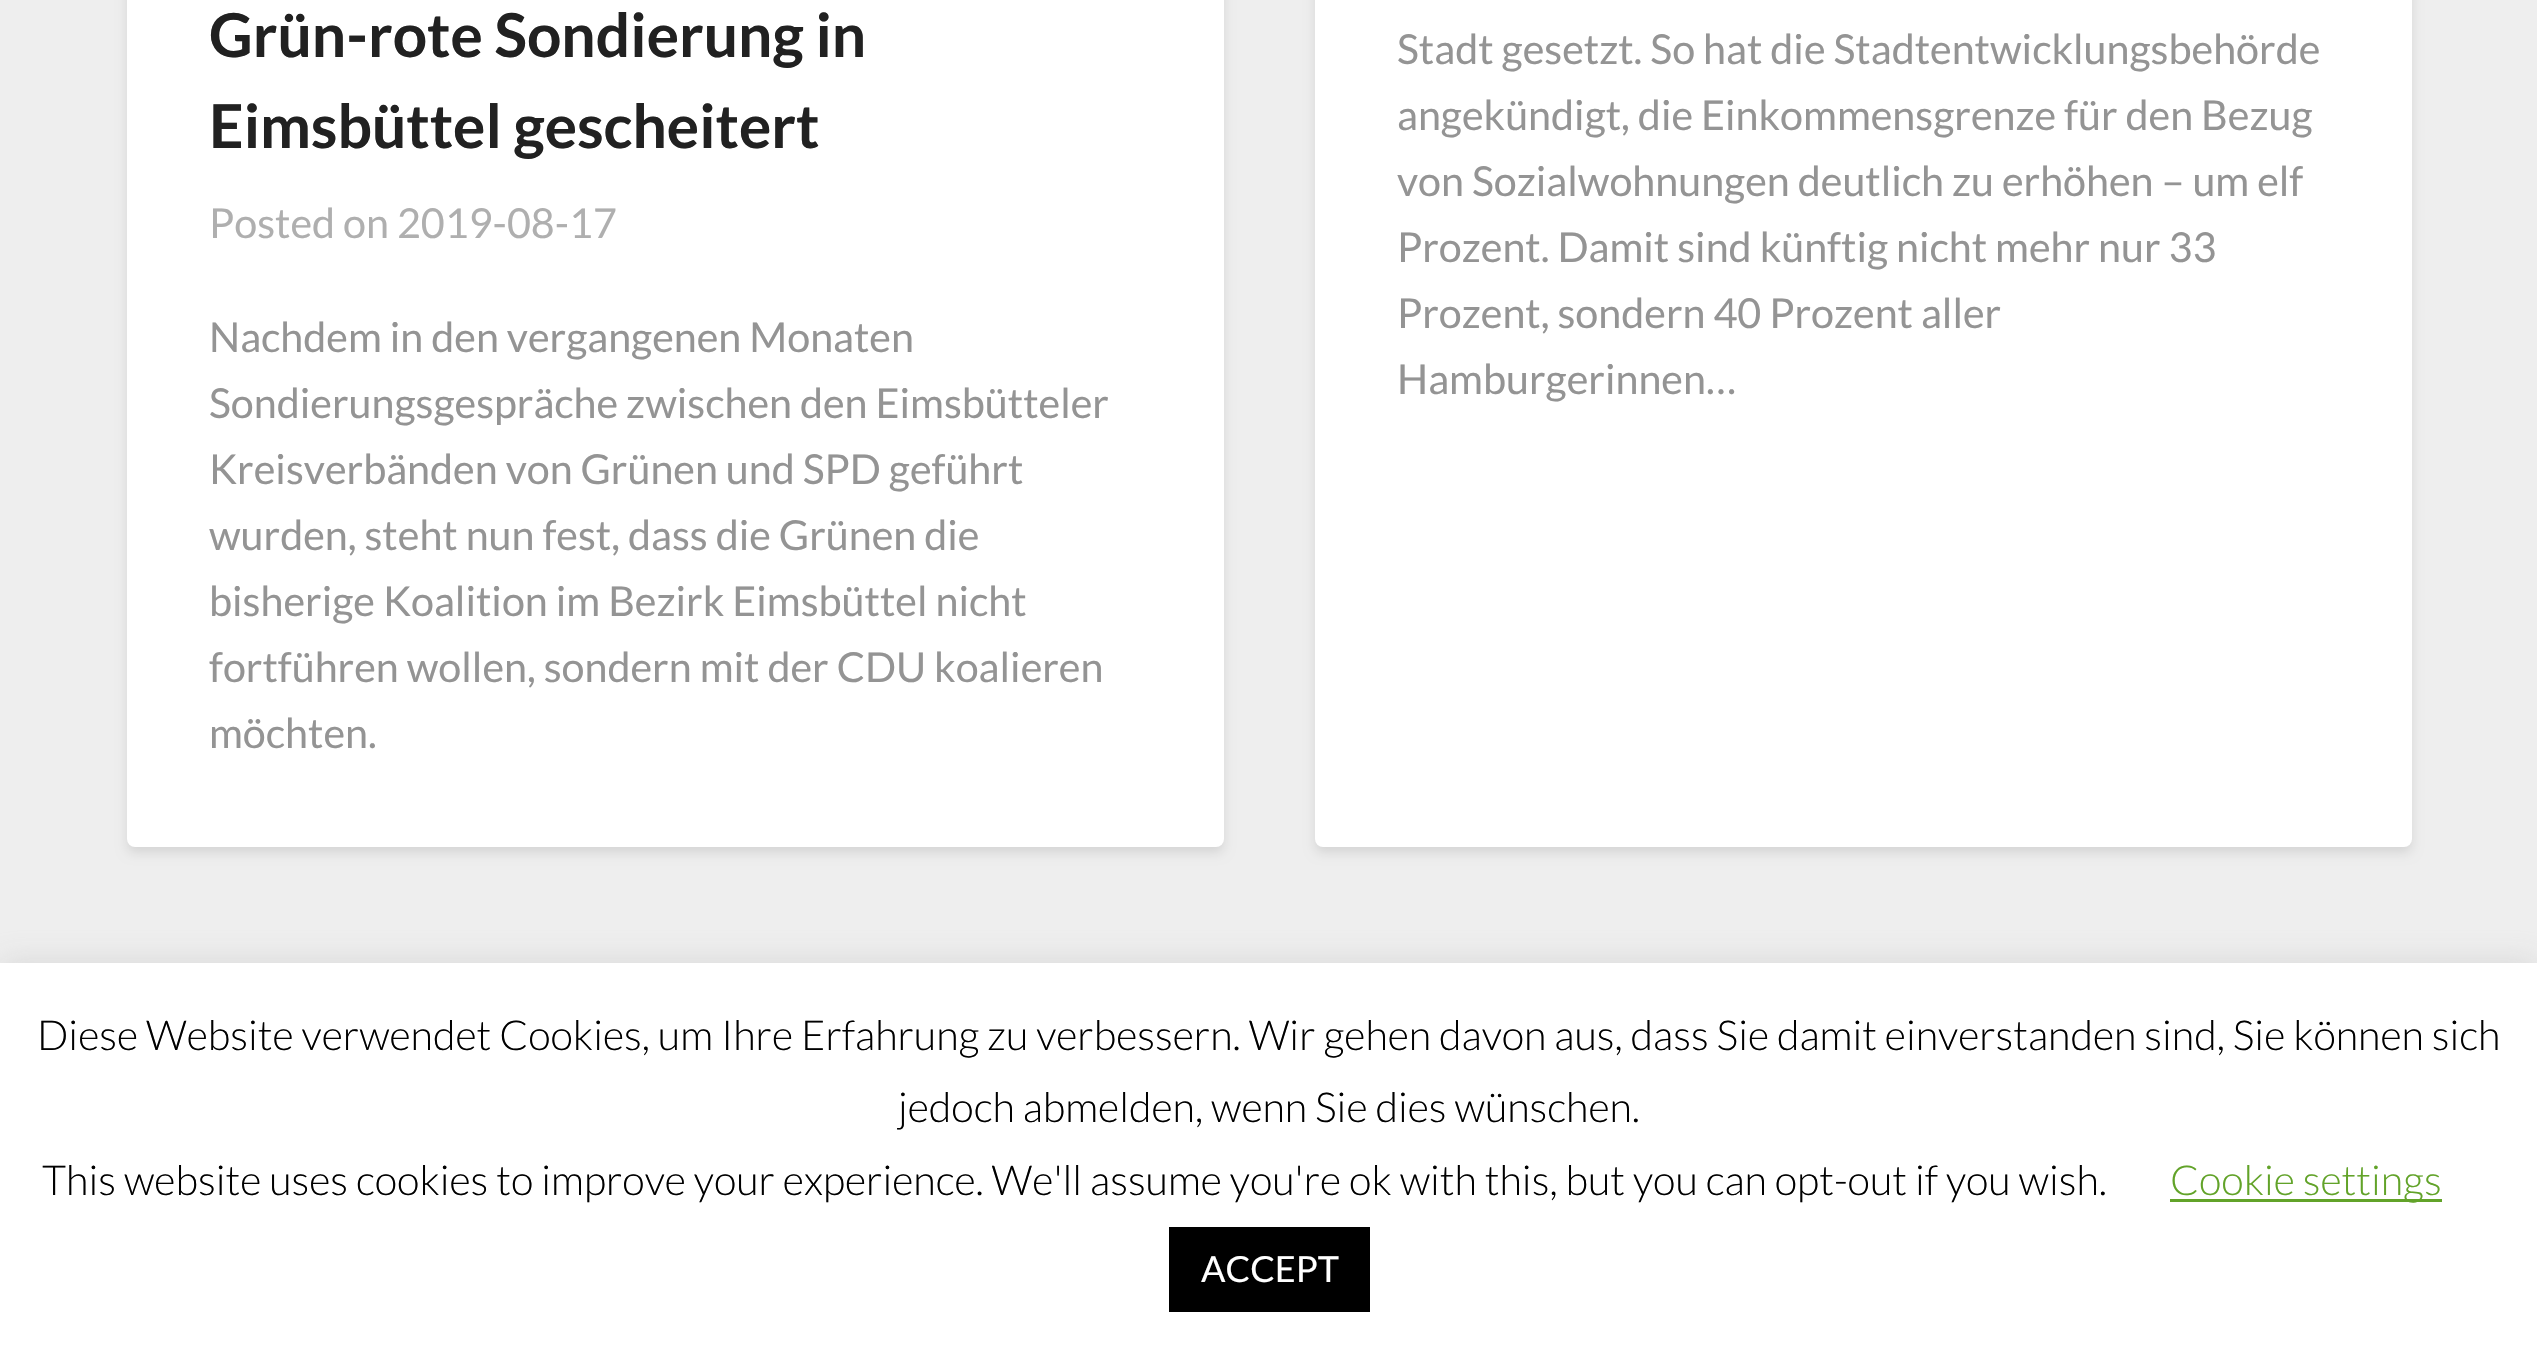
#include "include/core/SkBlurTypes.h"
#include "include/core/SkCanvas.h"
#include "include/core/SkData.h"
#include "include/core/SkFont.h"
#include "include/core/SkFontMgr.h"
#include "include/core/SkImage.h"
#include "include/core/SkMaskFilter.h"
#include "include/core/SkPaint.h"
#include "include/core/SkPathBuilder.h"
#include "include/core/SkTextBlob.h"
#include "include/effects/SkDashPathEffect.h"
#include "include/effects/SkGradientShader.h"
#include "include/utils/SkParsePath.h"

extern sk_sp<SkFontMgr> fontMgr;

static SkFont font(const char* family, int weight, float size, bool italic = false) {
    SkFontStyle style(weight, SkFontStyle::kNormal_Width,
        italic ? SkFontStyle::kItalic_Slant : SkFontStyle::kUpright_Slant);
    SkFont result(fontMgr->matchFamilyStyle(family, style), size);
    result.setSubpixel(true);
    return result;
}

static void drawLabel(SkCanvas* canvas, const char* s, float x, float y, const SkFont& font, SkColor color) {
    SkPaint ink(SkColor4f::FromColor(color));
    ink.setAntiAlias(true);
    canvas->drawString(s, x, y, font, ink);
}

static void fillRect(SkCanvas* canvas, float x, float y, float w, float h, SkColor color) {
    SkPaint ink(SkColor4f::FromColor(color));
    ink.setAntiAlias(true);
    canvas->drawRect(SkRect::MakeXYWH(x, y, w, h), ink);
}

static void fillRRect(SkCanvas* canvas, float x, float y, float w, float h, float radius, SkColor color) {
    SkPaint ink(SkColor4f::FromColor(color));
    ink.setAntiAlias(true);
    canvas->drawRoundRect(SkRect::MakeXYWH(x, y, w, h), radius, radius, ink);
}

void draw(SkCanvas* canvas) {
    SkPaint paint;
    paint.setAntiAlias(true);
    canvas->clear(0xFFEEEEEE);
    paint.setColor(0x1A000000);
    paint.setMaskFilter(SkMaskFilter::MakeBlur(kNormal_SkBlurStyle, 5.5f));
    canvas->drawRoundRect(SkRect::MakeXYWH(127, -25, 1097, 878), 8, 8, paint);
    paint.setMaskFilter(nullptr);
    fillRRect(canvas, 127, -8, 1097, 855, 8, 0xFFFFFFFF);
    SkFont font1 = font("Lato", 700, 60.5f);
    drawLabel(canvas, "Grün-rote Sondierung in", 209, 57, font1, 0xFF212121);
    drawLabel(canvas, "Eimsbüttel gescheitert", 209, 148, font1, 0xFF212121);
    SkFont font2 = font("Lato", 400, 41.25f);
    drawLabel(canvas, "Posted on 2019-08-17", 209, 238, font2, 0xFFAFAFAF);
    drawLabel(canvas, "Nachdem in den vergangenen Monaten", 209, 352, font2, 0xFF949494);
    drawLabel(canvas, "Sondierungsgespräche zwischen den Eimsbütteler", 209, 418, font2, 0xFF949494);
    drawLabel(canvas, "Kreisverbänden von Grünen und SPD geführt", 209, 484, font2, 0xFF949494);
    drawLabel(canvas, "wurden, steht nun fest, dass die Grünen die", 209, 550, font2, 0xFF949494);
    drawLabel(canvas, "bisherige Koalition im Bezirk Eimsbüttel nicht", 209, 616, font2, 0xFF949494);
    drawLabel(canvas, "fortführen wollen, sondern mit der CDU koalieren", 209, 682, font2, 0xFF949494);
    drawLabel(canvas, "möchten.", 209, 748, font2, 0xFF949494);
    paint.setMaskFilter(SkMaskFilter::MakeBlur(kNormal_SkBlurStyle, 5.5f));
    canvas->drawRoundRect(SkRect::MakeXYWH(1315, -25, 1097, 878), 8, 8, paint);
    paint.setMaskFilter(nullptr);
    fillRRect(canvas, 1315, -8, 1097, 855, 8, 0xFFFFFFFF);
    drawLabel(canvas, "Stadt gesetzt. So hat die Stadtentwicklungsbehörde", 1397, 64, font2, 0xFF949494);
    drawLabel(canvas, "angekündigt, die Einkommensgrenze für den Bezug", 1397, 130, font2, 0xFF949494);
    drawLabel(canvas, "von Sozialwohnungen deutlich zu erhöhen – um elf", 1397, 196, font2, 0xFF949494);
    drawLabel(canvas, "Prozent. Damit sind künftig nicht mehr nur 33", 1397, 262, font2, 0xFF949494);
    drawLabel(canvas, "Prozent, sondern 40 Prozent aller", 1397, 328, font2, 0xFF949494);
    drawLabel(canvas, "Hamburgerinnen…", 1397, 394, font2, 0xFF949494);
    paint.setColor(0x4DACABAB);
    paint.setMaskFilter(SkMaskFilter::MakeBlur(kNormal_SkBlurStyle, 14));
    canvas->drawRect(SkRect::MakeXYWH(0, 960, 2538, 396), paint);
    paint.setMaskFilter(nullptr);
    fillRect(canvas, 0, 963, 2537, 394, 0xFFFFFFFF);
    SkFont font3 = font("Lato", 300, 41.25f);
    drawLabel(canvas, "Diese Website verwendet Cookies, um Ihre Erfahrung zu verbessern. Wir gehen davon aus, dass Sie damit einverstanden sind, Sie können sich", 37, 1050, font3, 0xFF000000);
    drawLabel(canvas, "jedoch abmelden, wenn Sie dies wünschen.", 898, 1122, font3, 0xFF000000);
    drawLabel(canvas, "This website uses cookies to improve your experience. We'll assume you're ok with this, but you can opt-out if you wish.", 42, 1195, font3, 0xFF000000);
    fillRect(canvas, 2170, 1199, 272, 3, 0xFF62A329);
    drawLabel(canvas, "Cookie settings", 2170, 1195, font3, 0xFF62A329);
    fillRect(canvas, 1169, 1227, 201, 85, 0xFF000000);
    SkFont font4 = font("Lato", 400, 36);
    drawLabel(canvas, "ACCEPT", 1201, 1282, font4, 0xFFFFFFFF);
}
